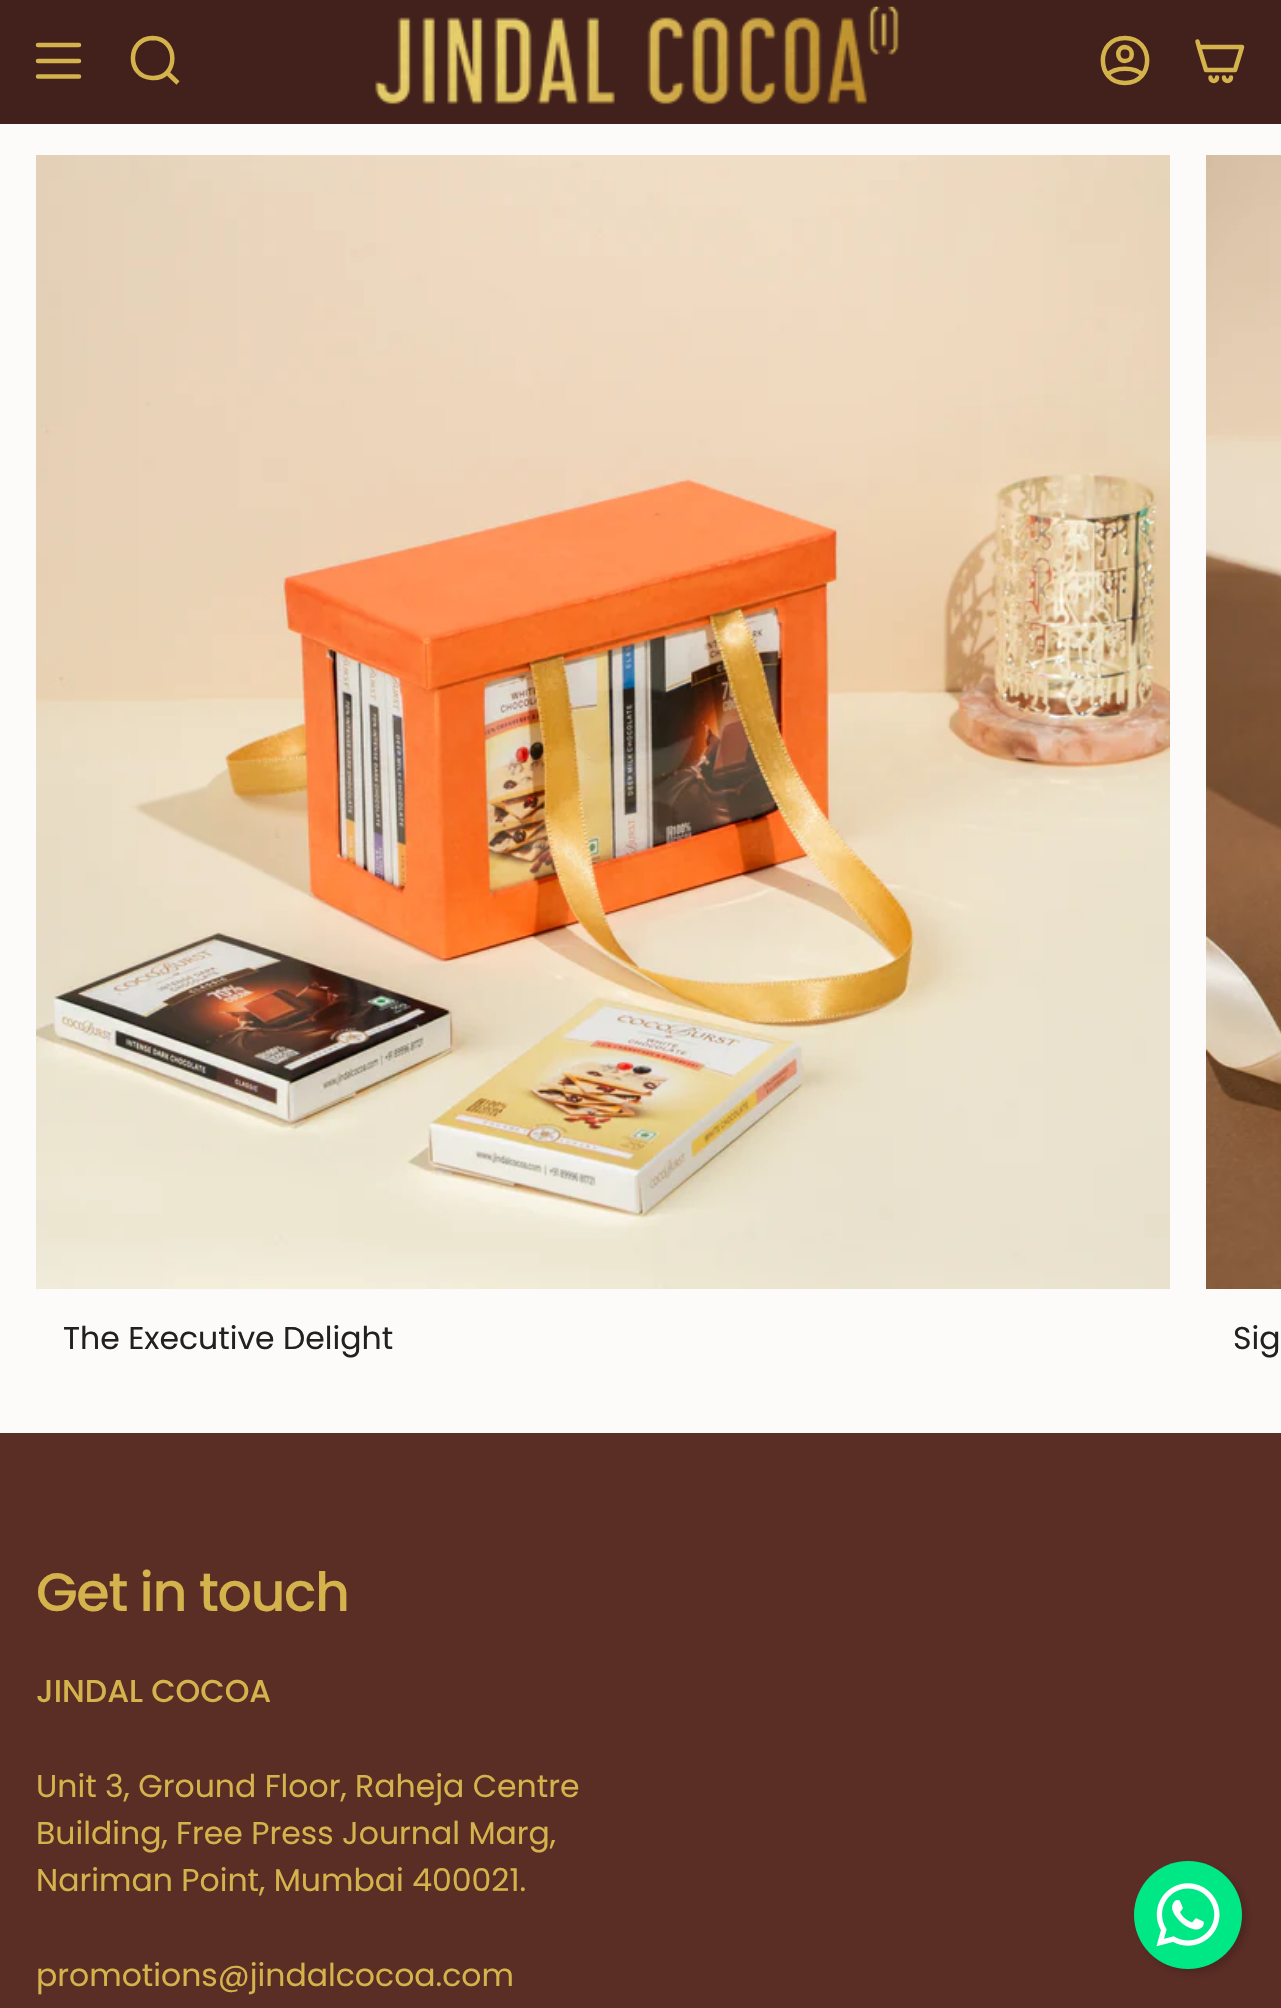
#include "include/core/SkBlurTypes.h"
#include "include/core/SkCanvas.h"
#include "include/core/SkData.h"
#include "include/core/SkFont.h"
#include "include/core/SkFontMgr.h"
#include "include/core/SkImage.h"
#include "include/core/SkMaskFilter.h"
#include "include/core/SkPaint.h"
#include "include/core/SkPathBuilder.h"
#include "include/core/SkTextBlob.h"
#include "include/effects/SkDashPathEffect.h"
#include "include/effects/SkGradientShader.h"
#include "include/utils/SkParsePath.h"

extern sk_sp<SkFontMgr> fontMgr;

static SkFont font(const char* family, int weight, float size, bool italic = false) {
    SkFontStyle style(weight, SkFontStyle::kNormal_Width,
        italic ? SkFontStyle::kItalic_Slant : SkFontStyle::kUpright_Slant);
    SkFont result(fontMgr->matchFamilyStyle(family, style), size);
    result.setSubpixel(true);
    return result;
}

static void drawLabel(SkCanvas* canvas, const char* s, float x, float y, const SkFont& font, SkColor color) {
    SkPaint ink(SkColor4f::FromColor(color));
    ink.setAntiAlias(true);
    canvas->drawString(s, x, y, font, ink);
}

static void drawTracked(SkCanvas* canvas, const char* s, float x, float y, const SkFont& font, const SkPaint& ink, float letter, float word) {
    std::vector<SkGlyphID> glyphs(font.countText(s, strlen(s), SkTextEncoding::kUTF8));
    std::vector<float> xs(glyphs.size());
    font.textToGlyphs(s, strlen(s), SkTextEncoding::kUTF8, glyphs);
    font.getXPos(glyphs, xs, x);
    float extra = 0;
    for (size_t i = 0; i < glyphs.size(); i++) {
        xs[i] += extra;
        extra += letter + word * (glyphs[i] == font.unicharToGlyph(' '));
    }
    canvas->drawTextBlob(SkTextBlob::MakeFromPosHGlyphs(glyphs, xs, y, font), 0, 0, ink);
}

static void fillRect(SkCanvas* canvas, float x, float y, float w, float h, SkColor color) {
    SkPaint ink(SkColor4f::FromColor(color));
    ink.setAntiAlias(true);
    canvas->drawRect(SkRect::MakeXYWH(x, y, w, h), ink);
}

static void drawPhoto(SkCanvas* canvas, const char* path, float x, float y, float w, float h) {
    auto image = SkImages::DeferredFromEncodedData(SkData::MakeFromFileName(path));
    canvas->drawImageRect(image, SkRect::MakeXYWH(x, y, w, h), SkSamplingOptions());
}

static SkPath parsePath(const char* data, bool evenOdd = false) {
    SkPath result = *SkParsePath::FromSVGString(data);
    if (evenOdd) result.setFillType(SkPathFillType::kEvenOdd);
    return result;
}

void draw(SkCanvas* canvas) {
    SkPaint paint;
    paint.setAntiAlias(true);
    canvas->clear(0xFFFCFBF9);
    fillRect(canvas, 0, 0, 1281, 124, 0xFF42211C);
    paint.setStroke(true);
    paint.setStrokeWidth(4.5f);
    paint.setStrokeCap(SkPaint::kRound_Cap);
    paint.setStrokeJoin(SkPaint::kRound_Join);
    paint.setColor(0xFFD4B24C);
    canvas->drawPath(parsePath("M38 45H79M38 61H79M38 76.5H79"), paint);
    paint.setStrokeCap(SkPaint::kButt_Cap);
    paint.setStrokeJoin(SkPaint::kMiter_Join);
    canvas->drawPath(parsePath("M152.5 38C179 38 179 79.5 152 78C126 77 127 38.5 152.5 38ZM167 72.5L178 83"), paint);
    drawPhoto(canvas, "assets/img1.png", 375, 6, 524, 99);
    paint.setStrokeCap(SkPaint::kRound_Cap);
    paint.setStrokeJoin(SkPaint::kRound_Join);
    canvas->drawPath(parsePath("M1125 38C1095.5 38 1095.5 83 1125 83C1154.5 83 1154.5 38 1125 38ZM1107.5 75C1114.5 66.5 1135.5 66.5 1142.5 75M1125 61C1134 61 1134 47.5 1125 47C1116 47 1116 61 1125 61Z"), paint);
    canvas->drawPath(parsePath("M1199 47H1242L1235 70H1206ZM1199 47L1197.5 41.5M1217 77.5C1217 82 1210.5 82 1210.5 77.5M1231 77.5C1231 82 1224 82 1224 77.5"), paint);
    drawPhoto(canvas, "assets/img2.png", 36, 155, 1134, 1134);
    SkFont font1 = font("Poppins", 400, 31.5f);
    drawLabel(canvas, "The Executive Delight", 63, 1349, font1, 0xFF212121);
    drawPhoto(canvas, "assets/img3.png", 1206, 155, 75, 1134);
    drawLabel(canvas, "Sig", 1233, 1349, font1, 0xFF212121);
    fillRect(canvas, 0, 1433, 1281, 575, 0xFF5A2D25);
    SkFont font2 = font("Poppins", 500, 54);
    paint.setStroke(false);
    drawTracked(canvas, "Get in touch", 36, 1611, font2, paint, -1.4f, 0);
    SkFont font3 = font("Poppins", 500, 31.5f);
    drawLabel(canvas, "JINDAL COCOA", 36, 1702, font3, 0xFFD4B24C);
    drawLabel(canvas, "Unit 3, Ground Floor, Raheja Centre", 36, 1797, font1, 0xFFD4B24C);
    drawLabel(canvas, "Building, Free Press Journal Marg,", 36, 1844, font1, 0xFFD4B24C);
    drawLabel(canvas, "Nariman Point, Mumbai 400021.", 36, 1891, font1, 0xFFD4B24C);
    drawLabel(canvas, "promotions@jindalcocoa.com", 36, 1986, font1, 0xFFD4B24C);
    paint.setColor(0x26000000);
    paint.setMaskFilter(SkMaskFilter::MakeBlur(kNormal_SkBlurStyle, 3));
    canvas->drawRoundRect(SkRect::MakeXYWH(1139, 1865, 108, 108), 54, 54, paint);
    paint.setMaskFilter(nullptr);
    paint.setColor(0xFF00E785);
    canvas->drawCircle(1188, 1915, 54, paint);
    drawPhoto(canvas, "assets/img4.png", 1156, 1883, 64, 64);
}
